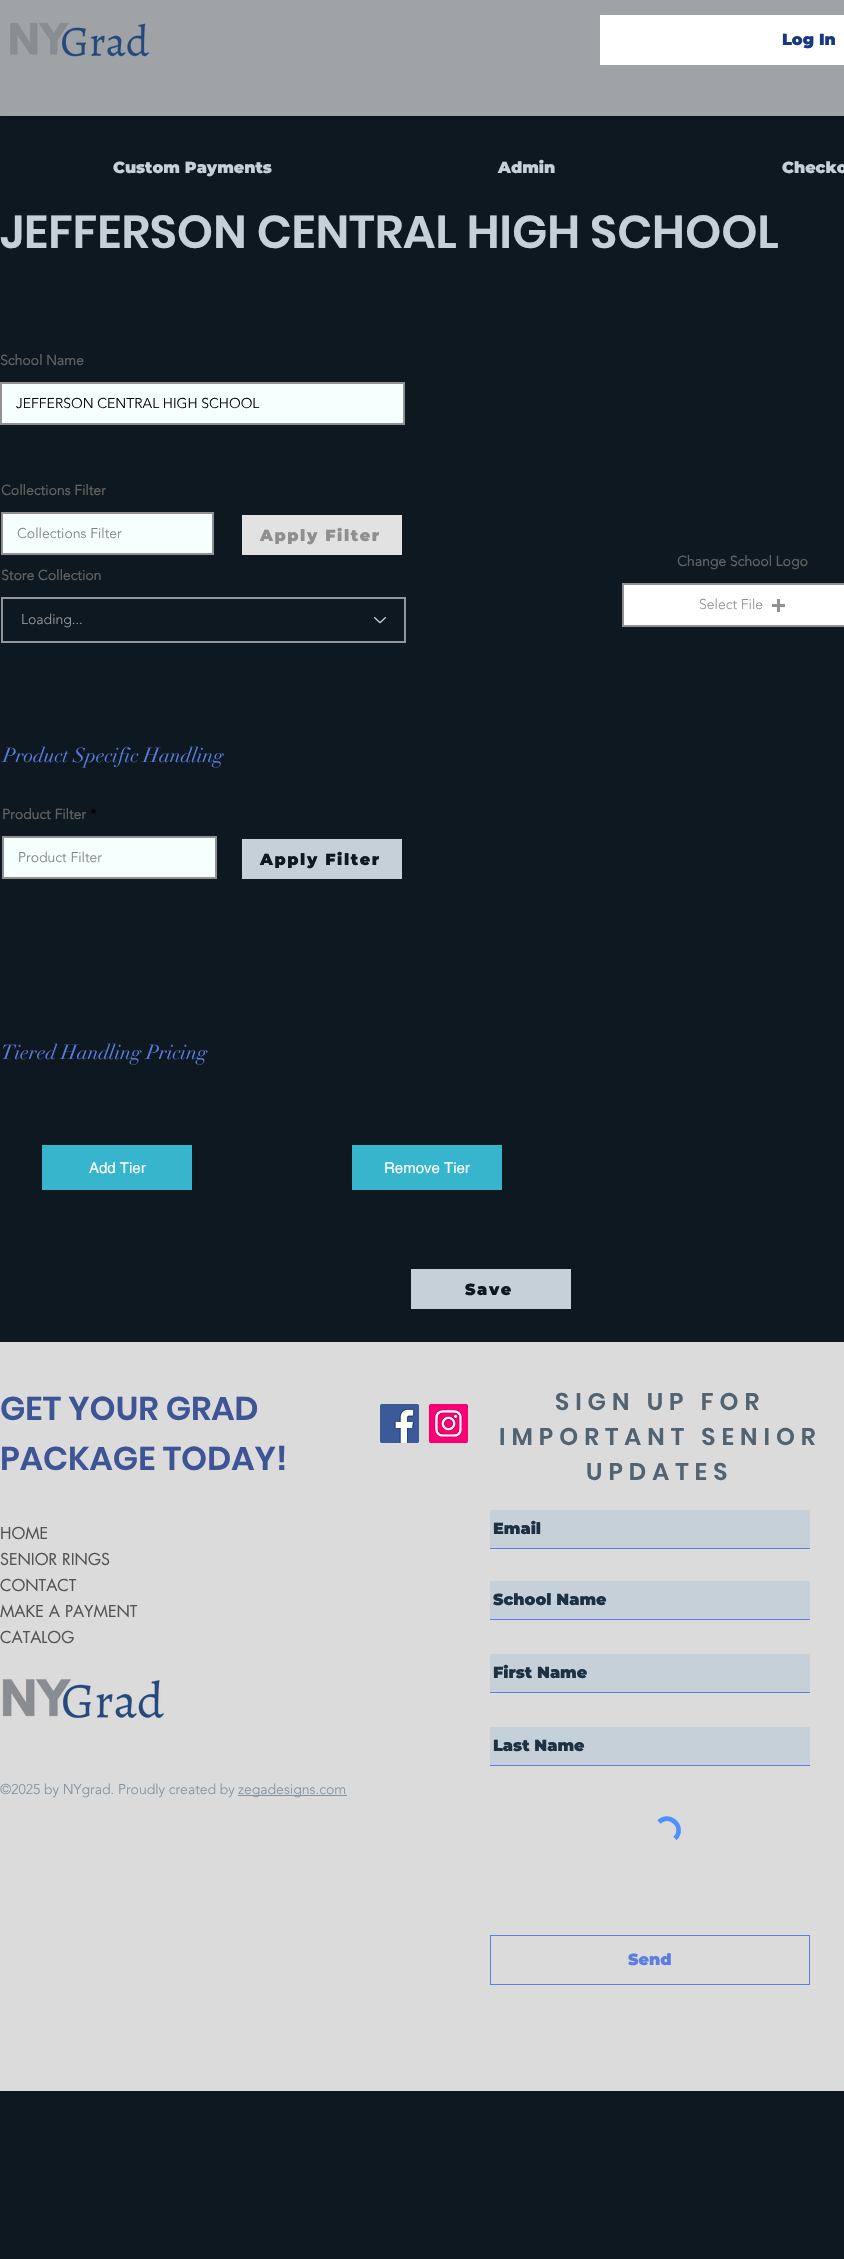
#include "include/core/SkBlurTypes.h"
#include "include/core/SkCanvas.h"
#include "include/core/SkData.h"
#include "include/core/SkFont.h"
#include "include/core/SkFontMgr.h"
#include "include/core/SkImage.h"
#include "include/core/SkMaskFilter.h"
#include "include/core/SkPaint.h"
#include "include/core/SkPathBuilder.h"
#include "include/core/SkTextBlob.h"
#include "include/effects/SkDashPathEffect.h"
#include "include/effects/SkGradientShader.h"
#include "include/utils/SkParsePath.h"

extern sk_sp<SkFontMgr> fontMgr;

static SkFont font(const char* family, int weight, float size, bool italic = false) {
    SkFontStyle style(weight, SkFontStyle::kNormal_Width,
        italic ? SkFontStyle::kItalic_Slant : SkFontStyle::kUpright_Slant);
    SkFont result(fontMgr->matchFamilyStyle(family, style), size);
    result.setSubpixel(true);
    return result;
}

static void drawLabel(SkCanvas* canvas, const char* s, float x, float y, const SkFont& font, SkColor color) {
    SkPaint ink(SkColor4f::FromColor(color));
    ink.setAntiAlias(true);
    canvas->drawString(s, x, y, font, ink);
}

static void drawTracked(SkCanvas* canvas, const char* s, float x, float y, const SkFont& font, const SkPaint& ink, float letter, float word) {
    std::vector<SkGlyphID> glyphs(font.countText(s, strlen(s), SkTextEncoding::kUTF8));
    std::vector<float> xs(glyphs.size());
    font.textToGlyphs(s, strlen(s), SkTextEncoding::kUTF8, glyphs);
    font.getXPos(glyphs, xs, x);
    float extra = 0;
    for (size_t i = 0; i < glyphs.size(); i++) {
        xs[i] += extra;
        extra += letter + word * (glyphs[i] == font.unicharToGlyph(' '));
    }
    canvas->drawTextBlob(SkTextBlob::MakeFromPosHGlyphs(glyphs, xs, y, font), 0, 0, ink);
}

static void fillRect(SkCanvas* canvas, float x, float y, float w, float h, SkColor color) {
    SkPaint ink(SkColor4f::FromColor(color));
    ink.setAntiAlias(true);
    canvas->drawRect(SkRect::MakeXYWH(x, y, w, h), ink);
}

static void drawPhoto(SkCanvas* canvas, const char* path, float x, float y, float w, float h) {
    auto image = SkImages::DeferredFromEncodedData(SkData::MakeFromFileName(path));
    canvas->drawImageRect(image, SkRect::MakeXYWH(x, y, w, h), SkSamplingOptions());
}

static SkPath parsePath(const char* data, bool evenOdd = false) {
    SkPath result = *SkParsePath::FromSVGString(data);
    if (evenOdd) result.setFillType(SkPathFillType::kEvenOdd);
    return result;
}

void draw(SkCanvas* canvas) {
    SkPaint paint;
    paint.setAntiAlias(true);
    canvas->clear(0xFF0E1821);
    paint.setColor(0xB3000000);
    paint.setMaskFilter(SkMaskFilter::MakeBlur(kNormal_SkBlurStyle, 2.5f));
    canvas->drawRect(SkRect::MakeXYWH(0, 0, 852, 116), paint);
    paint.setMaskFilter(nullptr);
    fillRect(canvas, 0, 0, 844, 116, 0xFF9FA3A6);
    drawPhoto(canvas, "assets/img1.png", 10, 22, 139, 35);
    fillRect(canvas, 600, 15, 244, 50, 0xFFFFFFFF);
    SkFont font1 = font("Montserrat", 100, 16);
    drawLabel(canvas, "Log In", 782, 45, font1, 0xFF173981);
    drawLabel(canvas, "Custom Payments", 113, 173, font1, 0xFFC5D0D9);
    drawLabel(canvas, "Admin", 498, 173, font1, 0xFFC5D0D9);
    drawLabel(canvas, "Checko", 782, 173, font1, 0xFFC5D0D9);
    SkFont font2 = font("Poppins", 600, 46);
    drawLabel(canvas, "JEFFERSON CENTRAL HIGH SCHOOL", 0, 248, font2, 0xFFC5D0D9);
    SkFont font3 = font("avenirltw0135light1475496", 700, 14);
    drawLabel(canvas, "School Name", 0, 365, font3, 0xFF61615F);
    paint.setColor(0xFFF5FFFE);
    canvas->drawRect(SkRect::MakeXYWH(1, 383, 403, 41), paint);
    paint.setStroke(true);
    paint.setStrokeWidth(2);
    paint.setColor(0xFF919191);
    canvas->drawRect(SkRect::MakeXYWH(1, 383, 403, 41), paint);
    SkFont font4 = font("avenirltw0135light1475496", 300, 14);
    drawLabel(canvas, "JEFFERSON CENTRAL HIGH SCHOOL", 16, 408, font4, 0xFF000000);
    drawLabel(canvas, "Collections Filter", 1, 495, font3, 0xFF61615F);
    paint.setStroke(false);
    paint.setColor(0xFFF5FFFE);
    canvas->drawRect(SkRect::MakeXYWH(2, 513, 211, 41), paint);
    paint.setStroke(true);
    paint.setColor(0xFF919191);
    canvas->drawRect(SkRect::MakeXYWH(2, 513, 211, 41), paint);
    drawLabel(canvas, "Collections Filter", 17, 538, font4, 0xFF7F808A);
    fillRect(canvas, 242, 515, 160, 40, 0xFFE2E2E2);
    paint.setStroke(false);
    paint.setColor(0xFF8F8F8F);
    drawTracked(canvas, "Apply Filter", 260, 541, font1, paint, 1.6f, 0);
    drawLabel(canvas, "Store Collection", 1, 580, font3, 0xFF61615F);
    paint.setStroke(true);
    paint.setColor(0xFF939699);
    canvas->drawRect(SkRect::MakeXYWH(2, 598, 403, 44), paint);
    drawLabel(canvas, "Loading...", 21, 624, font4, 0xFF999C9E);
    drawPhoto(canvas, "assets/img2.png", 374, 617, 12, 7);
    drawLabel(canvas, "Change School Logo", 677, 566, font3, 0xFF61615F);
    paint.setStroke(false);
    paint.setColor(0xFFFFFFFF);
    canvas->drawRect(SkRect::MakeXYWH(623, 584, 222, 42), paint);
    paint.setStroke(true);
    paint.setColor(0xFF919191);
    canvas->drawRect(SkRect::MakeXYWH(623, 584, 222, 42), paint);
    drawLabel(canvas, "Select File", 699, 609, font4, 0xFF8F8F8F);
    fillRect(canvas, 777, 599, 3, 13, 0xFF919191);
    fillRect(canvas, 772, 604, 13, 3, 0xFF919191);
    SkFont font5 = font("didot", 400, 20);
    drawLabel(canvas, "Product Specific Handling", 3, 762, font5, 0xFF5B7EE0);
    drawLabel(canvas, "Product Filter", 2, 819, font3, 0xFF61615F);
    drawLabel(canvas, "*", 90, 819, font3, 0xFF000000);
    paint.setStroke(false);
    paint.setColor(0xFFF5FFFE);
    canvas->drawRect(SkRect::MakeXYWH(3, 837, 213, 41), paint);
    paint.setStroke(true);
    paint.setColor(0xFF919191);
    canvas->drawRect(SkRect::MakeXYWH(3, 837, 213, 41), paint);
    drawLabel(canvas, "Product Filter", 18, 862, font4, 0xFF7F808A);
    fillRect(canvas, 242, 839, 160, 40, 0xFFC5D0D9);
    paint.setStroke(false);
    paint.setColor(0xFF0E1821);
    drawTracked(canvas, "Apply Filter", 260, 865, font1, paint, 1.6f, 0);
    drawLabel(canvas, "Tiered Handling Pricing", 1, 1059, font5, 0xFF5B7EE0);
    fillRect(canvas, 42, 1145, 150, 45, 0xFF36B5CD);
    SkFont font6 = font("helvetica", 400, 15);
    drawLabel(canvas, "Add Tier", 89, 1173, font6, 0xFFFFFFFF);
    fillRect(canvas, 352, 1145, 150, 45, 0xFF36B5CD);
    drawLabel(canvas, "Remove Tier", 384, 1173, font6, 0xFFFFFFFF);
    fillRect(canvas, 411, 1269, 160, 40, 0xFFC5D0D9);
    drawTracked(canvas, "Save", 465, 1295, font1, paint, 1.6f, 0);
    fillRect(canvas, 0, 1342, 844, 749, 0xFFDBDBDB);
    SkFont font7 = font("Poppins", 600, 33);
    drawLabel(canvas, "GET YOUR GRAD", 0, 1420, font7, 0xFF3D5495);
    drawLabel(canvas, "PACKAGE TODAY!", 0, 1470, font7, 0xFF3D5495);
    drawPhoto(canvas, "assets/img3.png", 380, 1404, 39, 39);
    drawPhoto(canvas, "assets/img4.png", 429, 1404, 39, 39);
    SkFont font8 = font("futura", 400, 16);
    drawLabel(canvas, "HOME", 0, 1539, font8, 0xFF555252);
    drawLabel(canvas, "SENIOR RINGS", 0, 1565, font8, 0xFF555252);
    drawLabel(canvas, "CONTACT", 0, 1591, font8, 0xFF555252);
    drawLabel(canvas, "MAKE A PAYMENT", 0, 1617, font8, 0xFF555252);
    drawLabel(canvas, "CATALOG", 0, 1643, font8, 0xFF555252);
    drawPhoto(canvas, "assets/img5.png", 2, 1679, 162, 40);
    drawLabel(canvas, "©2025 by NYgrad. Proudly created by", 0, 1794, font4, 0xFF8293A1);
    fillRect(canvas, 238, 1795, 109, 1, 0xFF8293A1);
    drawLabel(canvas, "zegadesigns.com", 238, 1794, font4, 0xFF8293A1);
    SkFont font9 = font("Poppins", 600, 24);
    paint.setColor(0xFF516371);
    drawTracked(canvas, "SIGN UP FOR", 555, 1410, font9, paint, 6, 0);
    drawTracked(canvas, "IMPORTANT SENIOR", 499, 1445, font9, paint, 6, 0);
    drawTracked(canvas, "UPDATES", 586, 1480, font9, paint, 6, 0);
    fillRect(canvas, 490, 1510, 320, 38, 0xFFC5D0D9);
    fillRect(canvas, 490, 1548, 320, 1, 0xFF5B7EE0);
    drawLabel(canvas, "Email", 493, 1534, font1, 0xFF1C3142);
    fillRect(canvas, 490, 1581, 320, 38, 0xFFC5D0D9);
    fillRect(canvas, 490, 1619, 320, 1, 0xFF5B7EE0);
    drawLabel(canvas, "School Name", 493, 1605, font1, 0xFF1C3142);
    fillRect(canvas, 490, 1654, 320, 38, 0xFFC5D0D9);
    fillRect(canvas, 490, 1692, 320, 1, 0xFF5B7EE0);
    drawLabel(canvas, "First Name", 493, 1678, font1, 0xFF1C3142);
    fillRect(canvas, 490, 1727, 320, 38, 0xFFC5D0D9);
    fillRect(canvas, 490, 1765, 320, 1, 0xFF5B7EE0);
    drawLabel(canvas, "Last Name", 493, 1751, font1, 0xFF1C3142);
    paint.setStroke(true);
    paint.setStrokeWidth(4.6f);
    paint.setColor(0xFF4D90FE);
    canvas->drawPath(parsePath("M659 1822C669.5 1811.5 686 1827.5 675 1838.5"), paint);
    paint.setStrokeWidth(1);
    paint.setColor(0xFF5B7EE0);
    canvas->drawRect(SkRect::MakeXYWH(490.5f, 1935.5f, 319, 49), paint);
    drawLabel(canvas, "Send", 628, 1965, font1, 0xFF5B7EE0);
}
